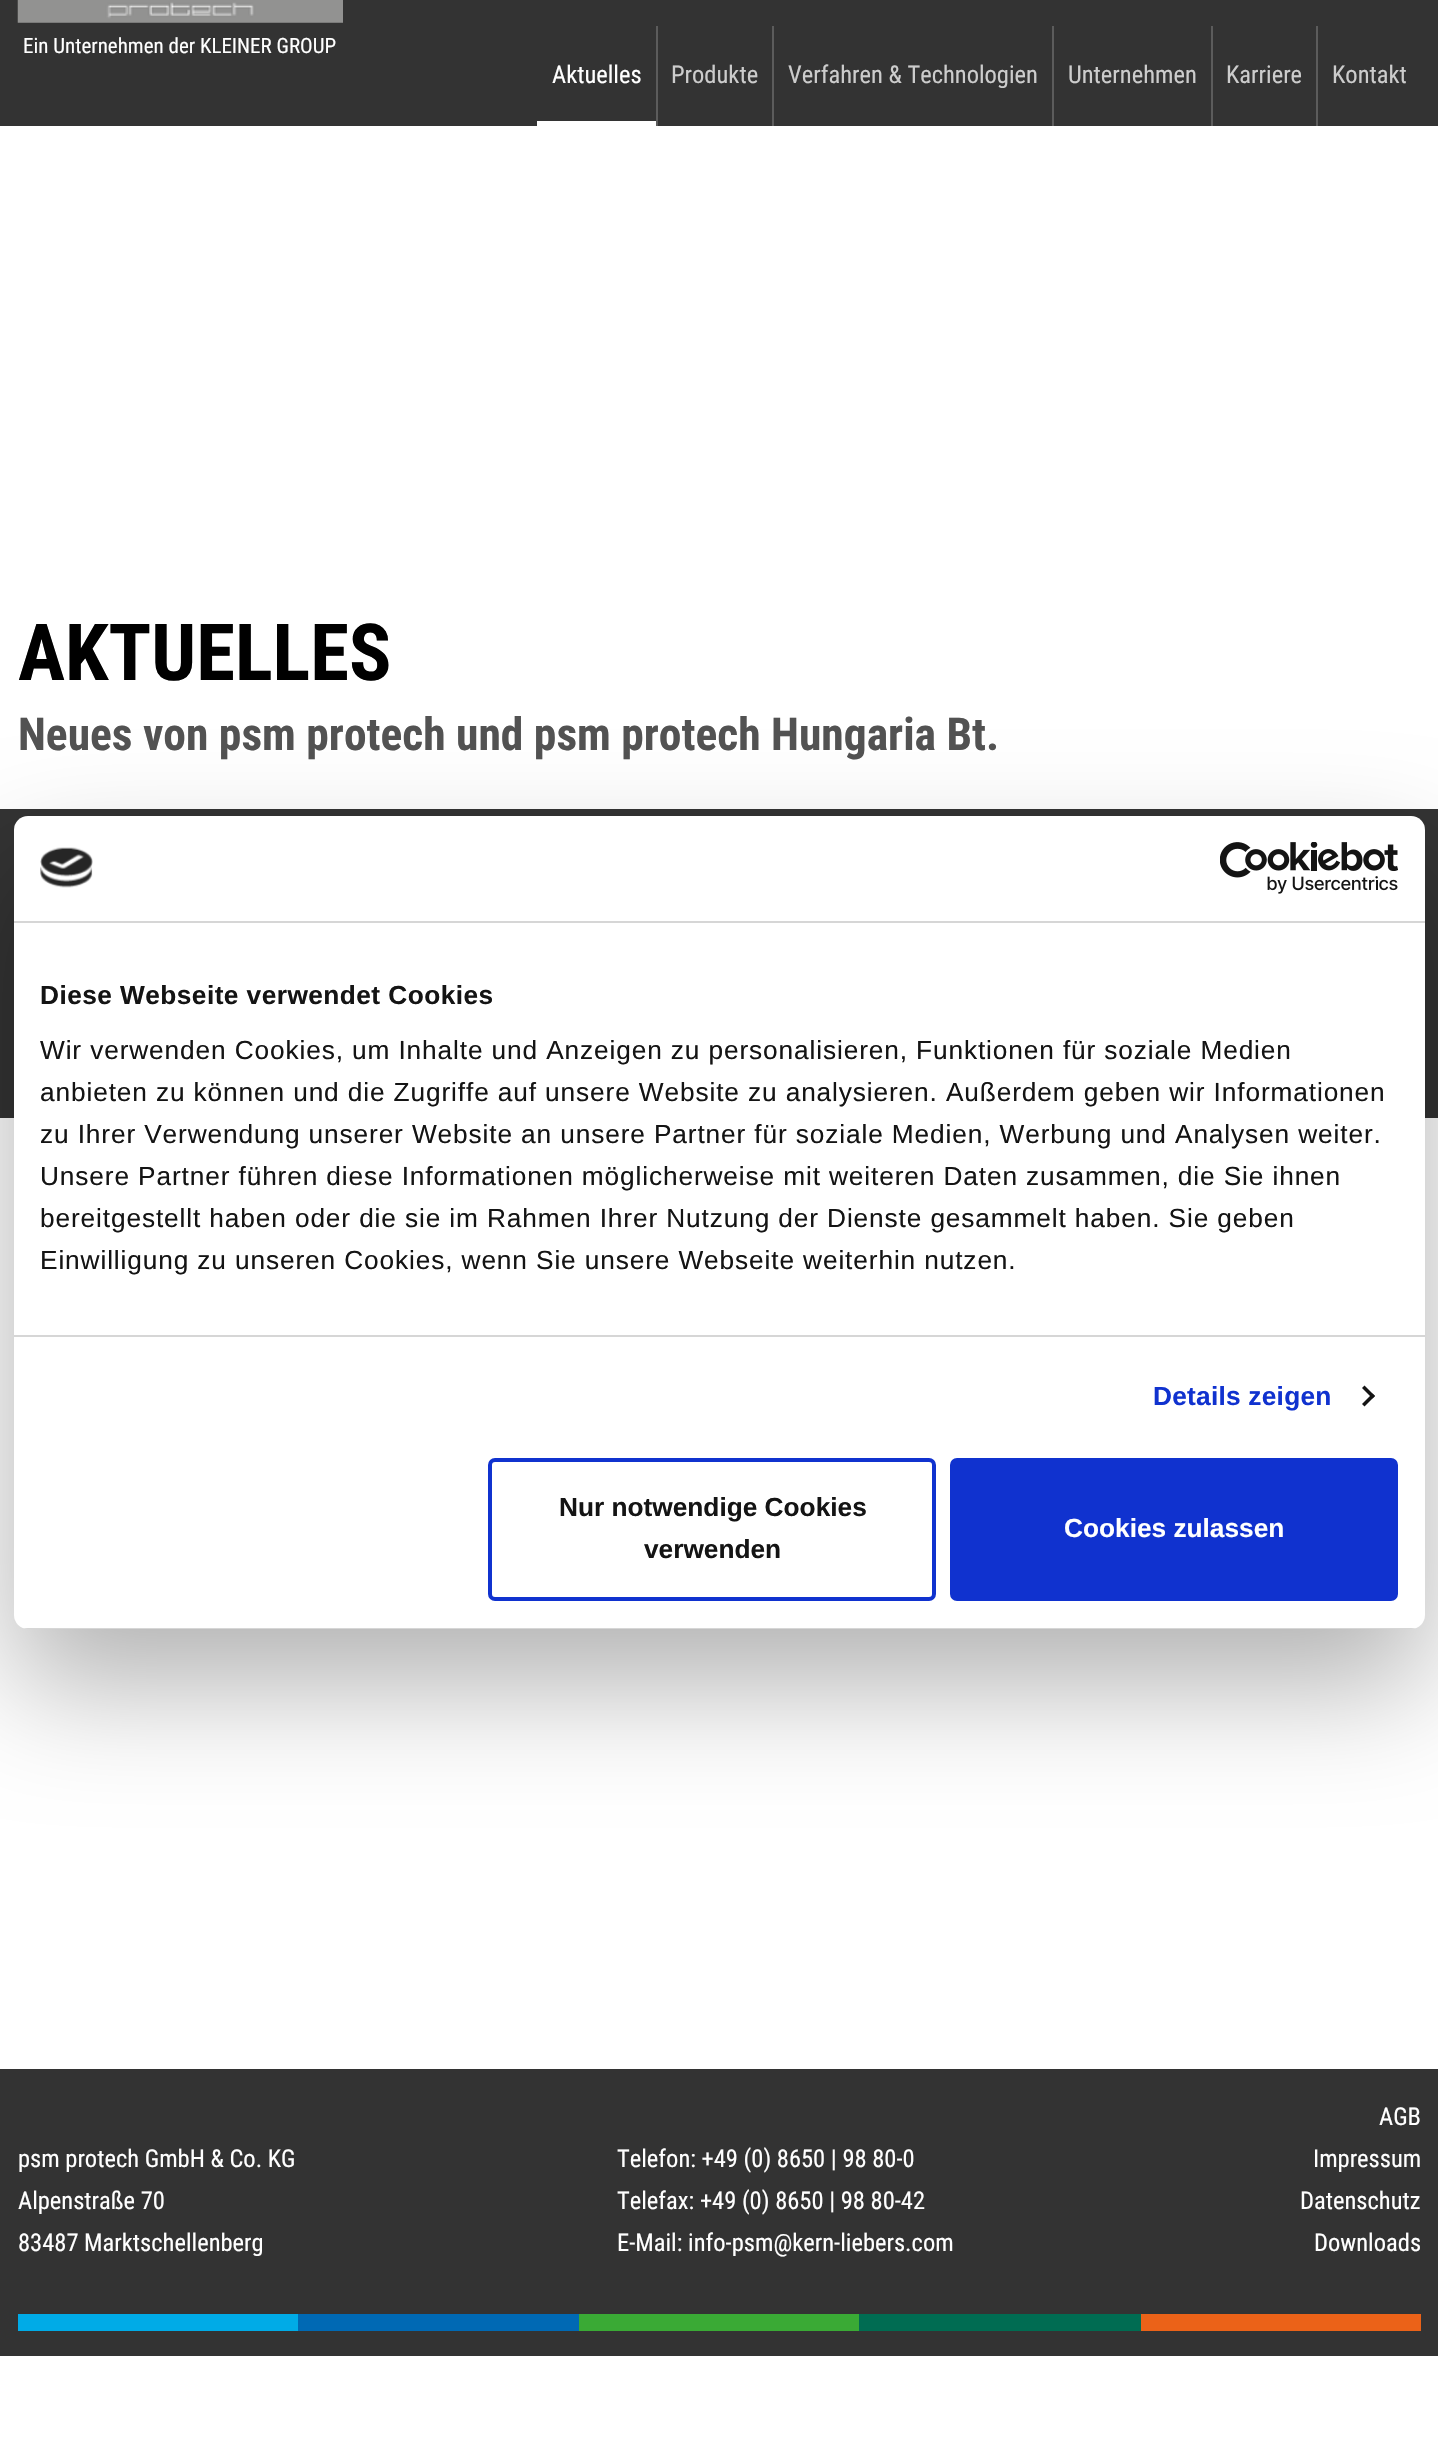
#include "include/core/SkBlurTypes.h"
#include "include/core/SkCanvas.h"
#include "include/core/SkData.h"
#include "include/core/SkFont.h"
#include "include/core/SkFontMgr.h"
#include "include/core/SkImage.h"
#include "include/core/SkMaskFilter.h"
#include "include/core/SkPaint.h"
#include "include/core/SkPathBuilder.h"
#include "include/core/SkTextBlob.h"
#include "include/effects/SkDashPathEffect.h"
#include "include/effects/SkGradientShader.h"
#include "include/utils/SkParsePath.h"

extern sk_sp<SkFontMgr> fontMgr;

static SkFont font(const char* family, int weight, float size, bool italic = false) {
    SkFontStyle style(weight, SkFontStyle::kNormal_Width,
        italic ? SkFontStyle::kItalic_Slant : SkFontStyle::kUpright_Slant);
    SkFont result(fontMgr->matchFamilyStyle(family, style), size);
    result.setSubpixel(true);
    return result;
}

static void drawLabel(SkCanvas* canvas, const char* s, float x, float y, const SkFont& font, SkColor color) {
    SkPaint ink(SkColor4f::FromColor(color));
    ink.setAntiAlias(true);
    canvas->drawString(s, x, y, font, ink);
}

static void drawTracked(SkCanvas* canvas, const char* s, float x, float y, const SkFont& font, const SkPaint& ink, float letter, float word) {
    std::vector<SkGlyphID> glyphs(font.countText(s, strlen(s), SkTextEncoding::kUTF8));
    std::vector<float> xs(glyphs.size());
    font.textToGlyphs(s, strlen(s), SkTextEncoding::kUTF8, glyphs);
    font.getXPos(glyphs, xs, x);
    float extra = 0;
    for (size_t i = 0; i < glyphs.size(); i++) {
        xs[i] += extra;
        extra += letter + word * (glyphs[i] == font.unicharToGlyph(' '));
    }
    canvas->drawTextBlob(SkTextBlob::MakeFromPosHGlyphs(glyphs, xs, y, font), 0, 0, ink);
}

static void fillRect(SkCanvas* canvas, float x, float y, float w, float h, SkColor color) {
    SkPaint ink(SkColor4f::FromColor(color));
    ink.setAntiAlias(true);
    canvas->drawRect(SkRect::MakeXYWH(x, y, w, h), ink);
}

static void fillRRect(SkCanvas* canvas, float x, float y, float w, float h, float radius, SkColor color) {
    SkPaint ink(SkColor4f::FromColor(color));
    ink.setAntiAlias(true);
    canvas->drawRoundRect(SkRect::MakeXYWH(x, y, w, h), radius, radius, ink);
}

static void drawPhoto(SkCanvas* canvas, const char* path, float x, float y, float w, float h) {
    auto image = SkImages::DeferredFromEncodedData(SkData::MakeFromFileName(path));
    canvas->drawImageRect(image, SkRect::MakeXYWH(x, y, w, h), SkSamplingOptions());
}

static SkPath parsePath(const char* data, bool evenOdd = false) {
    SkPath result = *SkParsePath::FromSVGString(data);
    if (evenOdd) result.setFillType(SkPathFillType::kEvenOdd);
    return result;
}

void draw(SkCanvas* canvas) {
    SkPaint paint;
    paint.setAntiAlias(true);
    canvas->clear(0xFFFFFFFF);
    fillRect(canvas, 0, 0, 1438, 126, 0xFF333333);
    drawPhoto(canvas, "assets/img1.png", 17, 0, 326, 23);
    SkFont font1 = font("Roboto Condensed", 400, 21);
    drawLabel(canvas, "Ein Unternehmen der KLEINER GROUP", 23, 53, font1, 0xFFFFFFFF);
    fillRect(canvas, 656, 26, 2, 100, 0xFF5C5C5C);
    fillRect(canvas, 537, 121, 119, 5, 0xFFFFFFFF);
    SkFont font2 = font("Roboto Condensed", 400, 24.5f);
    drawLabel(canvas, "Aktuelles", 552, 83, font2, 0xFFFFFFFF);
    fillRect(canvas, 772, 26, 2, 100, 0xFF5C5C5C);
    drawLabel(canvas, "Produkte", 671, 83, font2, 0xFFCCCCCC);
    fillRect(canvas, 1052, 26, 2, 100, 0xFF5C5C5C);
    drawLabel(canvas, "Verfahren & Technologien", 788, 83, font2, 0xFFCCCCCC);
    fillRect(canvas, 1211, 26, 2, 100, 0xFF5C5C5C);
    drawLabel(canvas, "Unternehmen", 1068, 83, font2, 0xFFCCCCCC);
    fillRect(canvas, 1316, 26, 2, 100, 0xFF5C5C5C);
    drawLabel(canvas, "Karriere", 1226, 83, font2, 0xFFCCCCCC);
    drawLabel(canvas, "Kontakt", 1332, 83, font2, 0xFFCCCCCC);
    SkFont font3 = font("Roboto Condensed", 700, 78.75f);
    drawLabel(canvas, "AKTUELLES", 18, 680, font3, 0xFF000000);
    SkFont font4 = font("Roboto Condensed", 700, 45.5f);
    drawLabel(canvas, "Neues von psm protech und psm protech Hungaria Bt.", 18, 750, font4, 0xFF525252);
    fillRect(canvas, 0, 809, 1438, 309, 0xFF333333);
    paint.setColor(0x4D000000);
    paint.setMaskFilter(SkMaskFilter::MakeBlur(kNormal_SkBlurStyle, 59.5f));
    canvas->drawRoundRect(SkRect::MakeXYWH(14, 872, 1411, 813), 14, 14, paint);
    paint.setMaskFilter(nullptr);
    fillRRect(canvas, 14, 816, 1411, 813, 14, 0xFFFFFFFF);
    fillRect(canvas, 14, 921, 1411, 2, 0xFFD6D6D6);
    drawPhoto(canvas, "assets/img2.png", 40, 847, 53, 41);
    drawPhoto(canvas, "assets/img3.png", 1220, 842, 178, 52);
    fillRect(canvas, 14, 1335, 1411, 2, 0xFFD6D6D6);
    SkFont font5 = font("Liberation Sans", 700, 26.25f);
    paint.setColor(0xFF141414);
    drawTracked(canvas, "Diese Webseite verwendet Cookies", 40, 1004, font5, paint, 0.45f, 0);
    SkFont font6 = font("Liberation Sans", 400, 26.25f);
    drawTracked(canvas, "Wir verwenden Cookies, um Inhalte und Anzeigen zu personalisieren, Funktionen für soziale Medien", 40, 1059, font6, paint, 0.88f, 0);
    drawTracked(canvas, "anbieten zu können und die Zugriffe auf unsere Website zu analysieren. Außerdem geben wir Informationen", 40, 1101, font6, paint, 0.88f, 0);
    drawTracked(canvas, "zu Ihrer Verwendung unserer Website an unsere Partner für soziale Medien, Werbung und Analysen weiter.", 40, 1143, font6, paint, 0.88f, 0);
    drawTracked(canvas, "Unsere Partner führen diese Informationen möglicherweise mit weiteren Daten zusammen, die Sie ihnen", 40, 1185, font6, paint, 0.88f, 0);
    drawTracked(canvas, "bereitgestellt haben oder die sie im Rahmen Ihrer Nutzung der Dienste gesammelt haben. Sie geben", 40, 1227, font6, paint, 0.88f, 0);
    drawTracked(canvas, "Einwilligung zu unseren Cookies, wenn Sie unsere Webseite weiterhin nutzen.", 40, 1269, font6, paint, 0.88f, 0);
    paint.setColor(0xFF1032CF);
    drawTracked(canvas, "Details zeigen", 1153, 1405, font5, paint, 0.25f, 0);
    paint.setColor(0xFF141414);
    canvas->drawPath(parsePath("M1364.5 1385.5L1375 1396L1372.5 1398.5L1362 1388Z"), paint);
    canvas->drawPath(parsePath("M1372.5 1393.5L1375 1396L1364.5 1406.5L1362 1404Z"), paint);
    canvas->save();
    canvas->clipPath(parsePath("M28 816H1411C1418.5 816 1425 822.5 1425 830V1615C1425 1622.5 1418.5 1629 1411 1629H28C20.5 1629 14 1622.5 14 1615V830C14 822.5 20.5 816 28 816Z"), true);
    fillRect(canvas, 23, 1628, 1393, 1, 0xFFD6D6D6);
    canvas->restore();
    paint.setStroke(true);
    paint.setStrokeWidth(4);
    paint.setColor(0xFF1032CF);
    canvas->drawRoundRect(SkRect::MakeXYWH(490, 1460, 444, 139), 5, 5, paint);
    drawLabel(canvas, "Nur notwendige Cookies", 559, 1516, font5, 0xFF141414);
    drawLabel(canvas, "verwenden", 644, 1558, font5, 0xFF141414);
    paint.setStroke(false);
    canvas->drawRoundRect(SkRect::MakeXYWH(952, 1460, 444, 139), 5, 5, paint);
    paint.setStroke(true);
    canvas->drawRoundRect(SkRect::MakeXYWH(952, 1460, 444, 139), 5, 5, paint);
    drawLabel(canvas, "Cookies zulassen", 1064, 1537, font5, 0xFFFFFFFF);
    fillRect(canvas, 0, 2069, 1438, 287, 0xFF333333);
    drawLabel(canvas, "psm protech GmbH & Co. KG", 18, 2167, font2, 0xFFFFFFFF);
    drawLabel(canvas, "Alpenstraße 70", 18, 2209, font2, 0xFFFFFFFF);
    drawLabel(canvas, "83487 Marktschellenberg", 18, 2251, font2, 0xFFFFFFFF);
    drawLabel(canvas, "Telefon: +49 (0) 8650 | 98 80-0", 617, 2167, font2, 0xFFFFFFFF);
    drawLabel(canvas, "Telefax: +49 (0) 8650 | 98 80-42", 617, 2209, font2, 0xFFFFFFFF);
    drawLabel(canvas, "E-Mail: info-psm@kern-liebers.com", 617, 2251, font2, 0xFFFFFFFF);
    drawLabel(canvas, "AGB", 1379, 2125, font2, 0xFFFFFFFF);
    drawLabel(canvas, "Impressum", 1313, 2167, font2, 0xFFFFFFFF);
    drawLabel(canvas, "Datenschutz", 1300, 2209, font2, 0xFFFFFFFF);
    drawLabel(canvas, "Downloads", 1314, 2251, font2, 0xFFFFFFFF);
    fillRect(canvas, 18, 2314, 280, 17, 0xFF00ABE7);
    fillRect(canvas, 298, 2314, 281, 17, 0xFF0069B4);
    fillRect(canvas, 579, 2314, 280, 17, 0xFF3AAA35);
    fillRect(canvas, 859, 2314, 282, 17, 0xFF006C52);
    fillRect(canvas, 1141, 2314, 280, 17, 0xFFEB6218);
}
